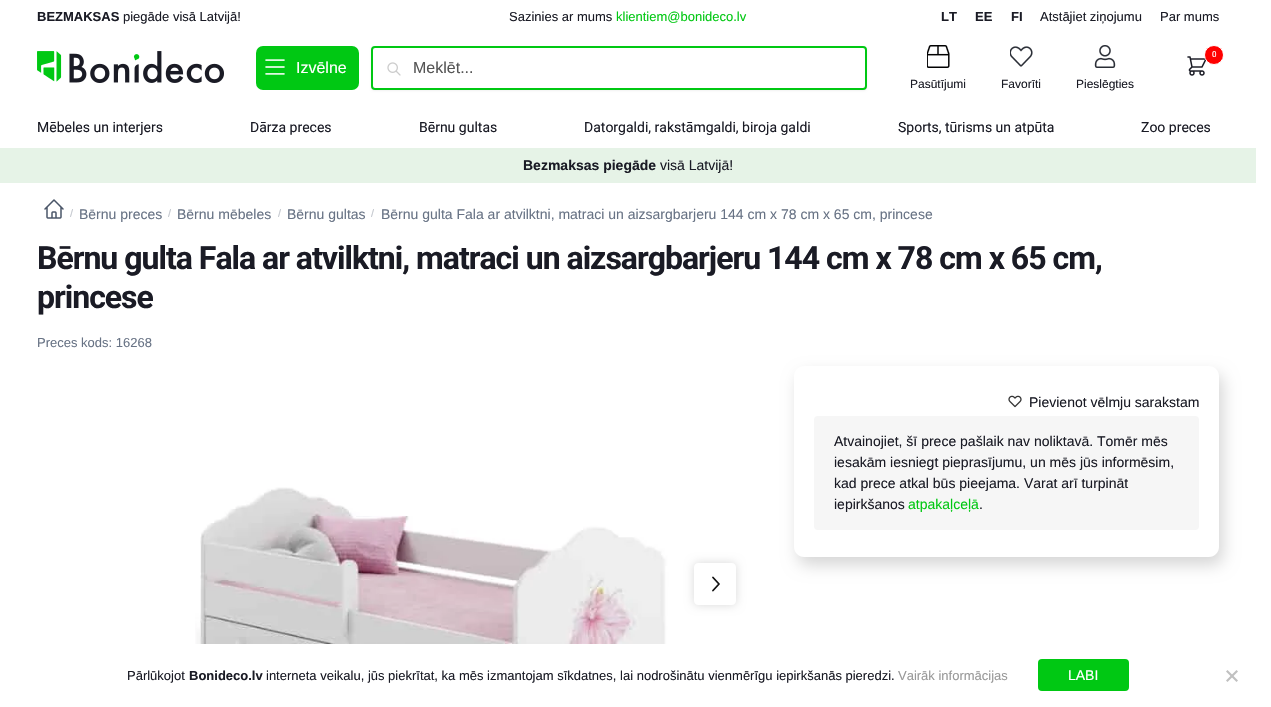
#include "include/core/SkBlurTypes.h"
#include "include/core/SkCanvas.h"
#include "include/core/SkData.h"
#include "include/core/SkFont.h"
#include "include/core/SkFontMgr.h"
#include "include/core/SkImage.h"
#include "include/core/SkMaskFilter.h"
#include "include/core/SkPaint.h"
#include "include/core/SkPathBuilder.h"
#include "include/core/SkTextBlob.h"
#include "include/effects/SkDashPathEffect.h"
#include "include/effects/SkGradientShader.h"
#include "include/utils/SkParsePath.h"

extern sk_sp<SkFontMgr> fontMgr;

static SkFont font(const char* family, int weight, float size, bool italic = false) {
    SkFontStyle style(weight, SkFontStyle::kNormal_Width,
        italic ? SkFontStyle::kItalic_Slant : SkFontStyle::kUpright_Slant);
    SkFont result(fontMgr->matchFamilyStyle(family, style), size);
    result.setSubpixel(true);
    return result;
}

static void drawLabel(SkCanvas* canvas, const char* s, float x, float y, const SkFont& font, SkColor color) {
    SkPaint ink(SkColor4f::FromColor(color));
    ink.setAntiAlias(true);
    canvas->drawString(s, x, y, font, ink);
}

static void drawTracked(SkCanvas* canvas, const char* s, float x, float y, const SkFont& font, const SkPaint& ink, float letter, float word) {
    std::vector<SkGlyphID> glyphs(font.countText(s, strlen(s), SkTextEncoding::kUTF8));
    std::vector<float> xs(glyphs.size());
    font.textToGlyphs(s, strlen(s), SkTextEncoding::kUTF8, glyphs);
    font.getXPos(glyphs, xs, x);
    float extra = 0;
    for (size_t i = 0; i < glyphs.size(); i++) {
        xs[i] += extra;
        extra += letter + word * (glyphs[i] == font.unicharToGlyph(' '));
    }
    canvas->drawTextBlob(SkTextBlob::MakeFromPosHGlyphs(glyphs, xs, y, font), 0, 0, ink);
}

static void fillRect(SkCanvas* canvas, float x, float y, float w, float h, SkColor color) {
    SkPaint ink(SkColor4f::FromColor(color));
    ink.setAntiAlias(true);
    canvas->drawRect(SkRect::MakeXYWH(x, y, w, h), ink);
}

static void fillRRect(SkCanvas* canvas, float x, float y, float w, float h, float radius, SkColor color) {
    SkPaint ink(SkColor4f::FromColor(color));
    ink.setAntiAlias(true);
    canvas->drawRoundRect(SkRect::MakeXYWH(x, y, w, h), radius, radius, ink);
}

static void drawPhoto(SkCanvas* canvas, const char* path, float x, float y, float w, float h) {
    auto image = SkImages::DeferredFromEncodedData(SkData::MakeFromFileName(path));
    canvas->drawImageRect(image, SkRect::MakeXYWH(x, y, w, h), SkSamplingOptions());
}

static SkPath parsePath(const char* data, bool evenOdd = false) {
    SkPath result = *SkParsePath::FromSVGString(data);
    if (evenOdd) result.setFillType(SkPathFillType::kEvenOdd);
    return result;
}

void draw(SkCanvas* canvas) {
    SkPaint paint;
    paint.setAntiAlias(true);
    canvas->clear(0xFFFFFFFF);
    SkFont font1 = font("Liberation Sans", 700, 13);
    drawLabel(canvas, "BEZMAKSAS", 37, 21, font1, 0xFF1A1B25);
    SkFont font2 = font("Liberation Sans", 400, 13);
    drawLabel(canvas, "piegāde visā Latvijā!", 123, 21, font2, 0xFF1A1B25);
    drawLabel(canvas, "Sazinies ar mums", 509, 21, font2, 0xFF1A1B25);
    drawLabel(canvas, "klientiem@bonideco.lv", 616, 21, font2, 0xFF01C812);
    drawLabel(canvas, "LT", 941, 21, font1, 0xFF1A1B25);
    drawLabel(canvas, "EE", 975, 21, font1, 0xFF1A1B25);
    drawLabel(canvas, "FI", 1011, 21, font1, 0xFF1A1B25);
    drawLabel(canvas, "Atstājiet ziņojumu", 1040, 21, font2, 0xFF1A1B25);
    drawLabel(canvas, "Par mums", 1160, 21, font2, 0xFF1A1B25);
    drawPhoto(canvas, "assets/img1.png", 37, 51, 187, 32);
    drawPhoto(canvas, "assets/img2.png", 1187, 56, 19, 20);
    paint.setColor(0xFFFF0000);
    canvas->drawCircle(1214, 55, 9.5f, paint);
    paint.setStroke(true);
    paint.setStrokeWidth(1);
    paint.setColor(0xFFFFFFFF);
    canvas->drawCircle(1214, 55, 9.5f, paint);
    SkFont font3 = font("Roboto", 400, 8);
    drawLabel(canvas, "0", 1212, 57, font3, 0xFFFFFFFF);
    fillRRect(canvas, 256, 46, 103, 44, 7, 0xFF00C813);
    drawPhoto(canvas, "assets/img3.png", 265, 59, 20, 16);
    SkFont font4 = font("Liberation Sans", 400, 16);
    drawLabel(canvas, "Izvēlne", 296, 73, font4, 0xFFFFFFFF);
    paint.setStroke(false);
    paint.setColor(0x0D000000);
    paint.setMaskFilter(SkMaskFilter::MakeBlur(kNormal_SkBlurStyle, 1));
    canvas->drawRoundRect(SkRect::MakeXYWH(371, 47, 496, 44), 4, 4, paint);
    paint.setMaskFilter(nullptr);
    paint.setColor(0xFFFFFFFF);
    canvas->drawRoundRect(SkRect::MakeXYWH(372, 47, 494, 42), 3, 3, paint);
    paint.setStroke(true);
    paint.setStrokeWidth(2);
    paint.setColor(0xFF00C813);
    canvas->drawRoundRect(SkRect::MakeXYWH(372, 47, 494, 42), 3, 3, paint);
    drawPhoto(canvas, "assets/img4.png", 387, 62, 14, 14);
    drawLabel(canvas, "Meklēt...", 413, 73, font4, 0xFF555555);
    drawPhoto(canvas, "assets/img5.png", 927, 45, 23, 23);
    SkFont font5 = font("Liberation Sans", 400, 12);
    drawLabel(canvas, "Pasūtījumi", 910, 88, font5, 0xFF1A1B25);
    drawPhoto(canvas, "assets/img6.png", 1010, 46, 23, 21);
    drawLabel(canvas, "Favorīti", 1001, 88, font5, 0xFF1A1B25);
    drawPhoto(canvas, "assets/img7.png", 1094, 45, 22, 23);
    drawLabel(canvas, "Pieslēgties", 1076, 88, font5, 0xFF1A1B25);
    SkFont font6 = font("Roboto", 400, 14);
    drawLabel(canvas, "Mēbeles un interjers", 37, 132, font6, 0xFF1A1B25);
    drawLabel(canvas, "Dārza preces", 250, 132, font6, 0xFF1A1B25);
    drawLabel(canvas, "Bērnu gultas", 419, 132, font6, 0xFF1A1B25);
    drawLabel(canvas, "Datorgaldi, rakstāmgaldi, biroja galdi", 584, 132, font6, 0xFF1A1B25);
    drawLabel(canvas, "Sports, tūrisms un atpūta", 898, 132, font6, 0xFF1A1B25);
    drawLabel(canvas, "Zoo preces", 1141, 132, font6, 0xFF1A1B25);
    fillRect(canvas, 0, 148, 1256, 35, 0xFFE6F3E7);
    SkFont font7 = font("Liberation Sans", 700, 14);
    drawLabel(canvas, "Bezmaksas piegāde", 523, 170, font7, 0xFF1A1B25);
    SkFont font8 = font("Liberation Sans", 400, 14);
    drawLabel(canvas, "visā Latvijā!", 660, 170, font8, 0xFF1A1B25);
    drawPhoto(canvas, "assets/img8.png", 44, 199, 20, 20);
    SkFont font9 = font("Liberation Sans", 400, 11);
    drawLabel(canvas, "/", 70, 217, font9, 0xFFC3C7CE);
    drawLabel(canvas, "Bērnu preces", 79, 219, font8, 0xFF687385);
    drawLabel(canvas, "/", 168, 217, font9, 0xFFC3C7CE);
    drawLabel(canvas, "Bērnu mēbeles", 177, 219, font8, 0xFF687385);
    drawLabel(canvas, "/", 278, 217, font9, 0xFFC3C7CE);
    drawLabel(canvas, "Bērnu gultas", 287, 219, font8, 0xFF687385);
    drawLabel(canvas, "/", 371, 217, font9, 0xFFC3C7CE);
    drawLabel(canvas, "Bērnu gulta Fala ar atvilktni, matraci un aizsargbarjeru 144 cm x 78 cm x 65 cm, princese", 381, 219, font8, 0xFF687385);
    SkFont font10 = font("Roboto", 700, 32);
    paint.setStroke(false);
    paint.setColor(0xFF1A1B25);
    drawTracked(canvas, "Bērnu gulta Fala ar atvilktni, matraci un aizsargbarjeru 144 cm x 78 cm x 65 cm,", 37, 269, font10, paint, -1, 0);
    drawTracked(canvas, "princese", 37, 308, font10, paint, -1, 0);
    drawLabel(canvas, "Preces kods: 16268", 37, 347, font2, 0xFF687385);
    canvas->save();
    canvas->clipPath(parsePath("M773 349H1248V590H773ZM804 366H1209C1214.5 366 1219 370.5 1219 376V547C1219 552.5 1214.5 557 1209 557H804C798.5 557 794 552.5 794 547V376C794 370.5 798.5 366 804 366Z", true), true);
    paint.setColor(0x29000000);
    paint.setMaskFilter(SkMaskFilter::MakeBlur(kNormal_SkBlurStyle, 8));
    canvas->drawRoundRect(SkRect::MakeXYWH(798, 374, 425, 191), 10, 10, paint);
    paint.setMaskFilter(nullptr);
    canvas->restore();
    drawPhoto(canvas, "assets/img9.png", 1008, 395, 14, 13);
    drawLabel(canvas, "Pievienot vēlmju sarakstam", 1029, 407, font8, 0xFF1A1B25);
    fillRRect(canvas, 814, 416, 385, 114, 4, 0xFFF6F6F6);
    drawLabel(canvas, "Atvainojiet, šī prece pašlaik nav noliktavā. Tomēr mēs", 834, 446, font8, 0xFF1A1B25);
    drawLabel(canvas, "iesakām iesniegt pieprasījumu, un mēs jūs informēsim,", 834, 467, font8, 0xFF1A1B25);
    drawLabel(canvas, "kad prece atkal būs pieejama. Varat arī turpināt", 834, 488, font8, 0xFF1A1B25);
    drawLabel(canvas, "iepirkšanos", 834, 509, font8, 0xFF1A1B25);
    drawLabel(canvas, "atpakaļceļā", 908, 509, font8, 0xFF01C812);
    drawLabel(canvas, ".", 979, 509, font8, 0xFF1A1B25);
    drawPhoto(canvas, "assets/img10.png", 195, 487, 477, 157);
    canvas->save();
    canvas->clipPath(parsePath("M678 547H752V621H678ZM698 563H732C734 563 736 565 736 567V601C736 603 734 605 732 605H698C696 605 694 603 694 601V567C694 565 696 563 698 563Z", true), true);
    paint.setColor(0x26000000);
    paint.setMaskFilter(SkMaskFilter::MakeBlur(kNormal_SkBlurStyle, 5));
    canvas->drawRoundRect(SkRect::MakeXYWH(694, 563, 42, 42), 4, 4, paint);
    paint.setMaskFilter(nullptr);
    canvas->restore();
    paint.setStroke(true);
    paint.setStrokeWidth(1.8f);
    paint.setStrokeCap(SkPaint::kRound_Cap);
    paint.setStrokeJoin(SkPaint::kRound_Join);
    paint.setColor(0xFF111111);
    canvas->drawPath(parsePath("M713 590.5L719 584L713 577.5"), paint);
    drawLabel(canvas, "Pārlūkojot", 127, 680, font2, 0xFF1A1B25);
    drawLabel(canvas, "Bonideco.lv", 189, 680, font1, 0xFF1A1B25);
    drawLabel(canvas, "interneta veikalu, jūs piekrītat, ka mēs izmantojam sīkdatnes, lai nodrošinātu vienmērīgu iepirkšanās pieredzi.", 266, 680, font2, 0xFF1A1B25);
    drawLabel(canvas, "Vairāk informācijas", 898, 680, font2, 0xFF999999);
    fillRRect(canvas, 1038, 659, 91, 32, 4, 0xFF00C813);
    drawLabel(canvas, "LABI", 1068, 680, font8, 0xFFFFFFFF);
    paint.setStroke(false);
    paint.setColor(0xFFC0C0C0);
    canvas->drawPath(parsePath("M1236.5 670L1238 671.5L1227.5 682L1226 680.5Z"), paint);
    canvas->drawPath(parsePath("M1226 671.5L1227.5 670L1238 680.5L1236.5 682Z"), paint);
}
